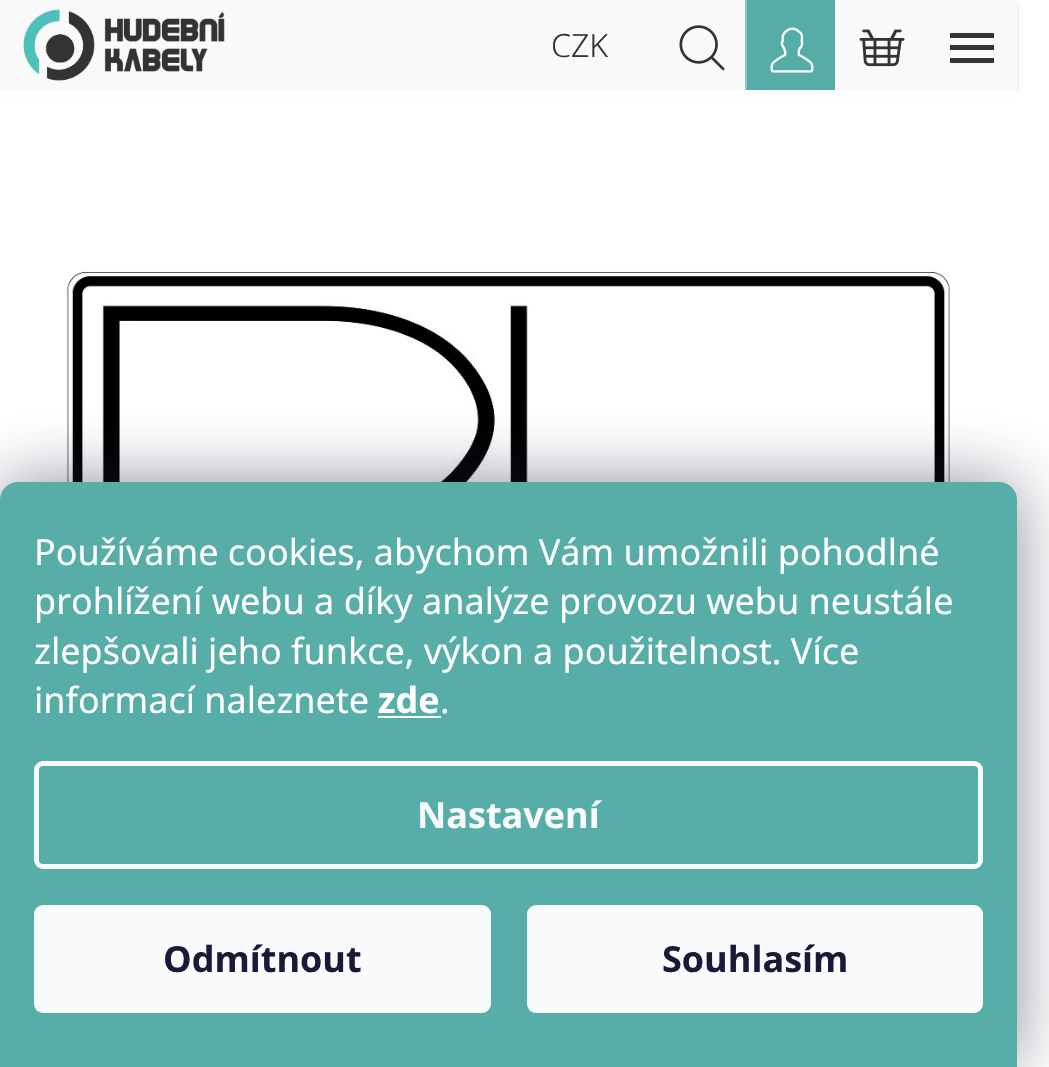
#include "include/core/SkBlurTypes.h"
#include "include/core/SkCanvas.h"
#include "include/core/SkData.h"
#include "include/core/SkFont.h"
#include "include/core/SkFontMgr.h"
#include "include/core/SkImage.h"
#include "include/core/SkMaskFilter.h"
#include "include/core/SkPaint.h"
#include "include/core/SkPathBuilder.h"
#include "include/core/SkTextBlob.h"
#include "include/effects/SkDashPathEffect.h"
#include "include/effects/SkGradientShader.h"
#include "include/utils/SkParsePath.h"

extern sk_sp<SkFontMgr> fontMgr;

static SkFont font(const char* family, int weight, float size, bool italic = false) {
    SkFontStyle style(weight, SkFontStyle::kNormal_Width,
        italic ? SkFontStyle::kItalic_Slant : SkFontStyle::kUpright_Slant);
    SkFont result(fontMgr->matchFamilyStyle(family, style), size);
    result.setSubpixel(true);
    return result;
}

static void drawLabel(SkCanvas* canvas, const char* s, float x, float y, const SkFont& font, SkColor color) {
    SkPaint ink(SkColor4f::FromColor(color));
    ink.setAntiAlias(true);
    canvas->drawString(s, x, y, font, ink);
}

static void fillRect(SkCanvas* canvas, float x, float y, float w, float h, SkColor color) {
    SkPaint ink(SkColor4f::FromColor(color));
    ink.setAntiAlias(true);
    canvas->drawRect(SkRect::MakeXYWH(x, y, w, h), ink);
}

static void fillRRect(SkCanvas* canvas, float x, float y, float w, float h, float radius, SkColor color) {
    SkPaint ink(SkColor4f::FromColor(color));
    ink.setAntiAlias(true);
    canvas->drawRoundRect(SkRect::MakeXYWH(x, y, w, h), radius, radius, ink);
}

static void drawPhoto(SkCanvas* canvas, const char* path, float x, float y, float w, float h) {
    auto image = SkImages::DeferredFromEncodedData(SkData::MakeFromFileName(path));
    canvas->drawImageRect(image, SkRect::MakeXYWH(x, y, w, h), SkSamplingOptions());
}

static SkPath parsePath(const char* data, bool evenOdd = false) {
    SkPath result = *SkParsePath::FromSVGString(data);
    if (evenOdd) result.setFillType(SkPathFillType::kEvenOdd);
    return result;
}

void draw(SkCanvas* canvas) {
    SkPaint paint;
    paint.setAntiAlias(true);
    canvas->clear(0xFFFFFFFF);
    paint.setColor(0x29000000);
    paint.setMaskFilter(SkMaskFilter::MakeBlur(kNormal_SkBlurStyle, 2));
    canvas->drawRect(SkRect::MakeXYWH(0, 2, 1017, 90), paint);
    paint.setMaskFilter(nullptr);
    fillRect(canvas, 0, 0, 1015, 90, 0xFFF9F9F9);
    drawPhoto(canvas, "assets/img1.png", 23, 9, 202, 72);
    fillRect(canvas, 1015, 0, 2, 90, 0xFFFBFBFB);
    SkFont font1 = font("Noto Sans", 300, 32);
    drawLabel(canvas, "CZK", 551, 57, font1, 0xFF333333);
    drawPhoto(canvas, "assets/img2.png", 679, 25, 46, 46);
    fillRect(canvas, 747, 0, 88, 90, 0xFF56ADA8);
    fillRect(canvas, 745, 0, 2, 90, 0xFF89C6C2);
    drawPhoto(canvas, "assets/img3.png", 770, 27, 44, 46);
    drawPhoto(canvas, "assets/img4.png", 859, 29, 46, 38);
    paint.setColor(0xFF333333);
    canvas->drawPath(parsePath("M950 63H994V58H950ZM950 50H994V45H950ZM950 33V38H994V33Z"), paint);
    fillRect(canvas, 0, 90, 1017, 5, 0xFFFFFFFF);
    drawPhoto(canvas, "assets/img5.png", 67, 269, 883, 213);
    paint.setColor(0x801B1939);
    paint.setMaskFilter(SkMaskFilter::MakeBlur(kNormal_SkBlurStyle, 34));
    canvas->drawRoundRect(SkRect::MakeXYWH(0, 482, 1017, 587), 18, 18, paint);
    paint.setMaskFilter(nullptr);
    paint.setColor(0xFF57ADA8);
    canvas->drawPath(parsePath("M18 482H999C1009 482 1017 490 1017 500V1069H0V500C0 490 8 482 18 482Z"), paint);
    SkFont font2 = font("Noto Sans", 400, 36);
    drawLabel(canvas, "Používáme cookies, abychom Vám umožnili pohodlné", 34, 565, font2, 0xFFFFFFFF);
    drawLabel(canvas, "prohlížení webu a díky analýze provozu webu neustále", 34, 614, font2, 0xFFFFFFFF);
    drawLabel(canvas, "zlepšovali jeho funkce, výkon a použitelnost. Více", 34, 664, font2, 0xFFFFFFFF);
    drawLabel(canvas, "informací naleznete", 34, 713, font2, 0xFFFFFFFF);
    SkFont font3 = font("Noto Sans", 700, 36);
    drawLabel(canvas, "zde", 378, 713, font3, 0xFFFFFFFF);
    drawLabel(canvas, ".", 440, 713, font2, 0xFFFFFFFF);
    fillRect(canvas, 378, 716, 63, 2, 0xFFF8FAFB);
    paint.setStroke(true);
    paint.setStrokeWidth(5);
    paint.setColor(0xFFF8FAFB);
    canvas->drawRoundRect(SkRect::MakeXYWH(36.5f, 763.5f, 944, 103), 6.5f, 6.5f, paint);
    drawLabel(canvas, "Nastavení", 417, 828, font3, 0xFFF8FAFB);
    fillRRect(canvas, 34, 905, 457, 108, 9, 0xFFF8FAFB);
    drawLabel(canvas, "Odmítnout", 163, 972, font3, 0xFF1A1937);
    fillRRect(canvas, 527, 905, 456, 108, 9, 0xFFF8FAFB);
    drawLabel(canvas, "Souhlasím", 662, 972, font3, 0xFF1A1937);
}
